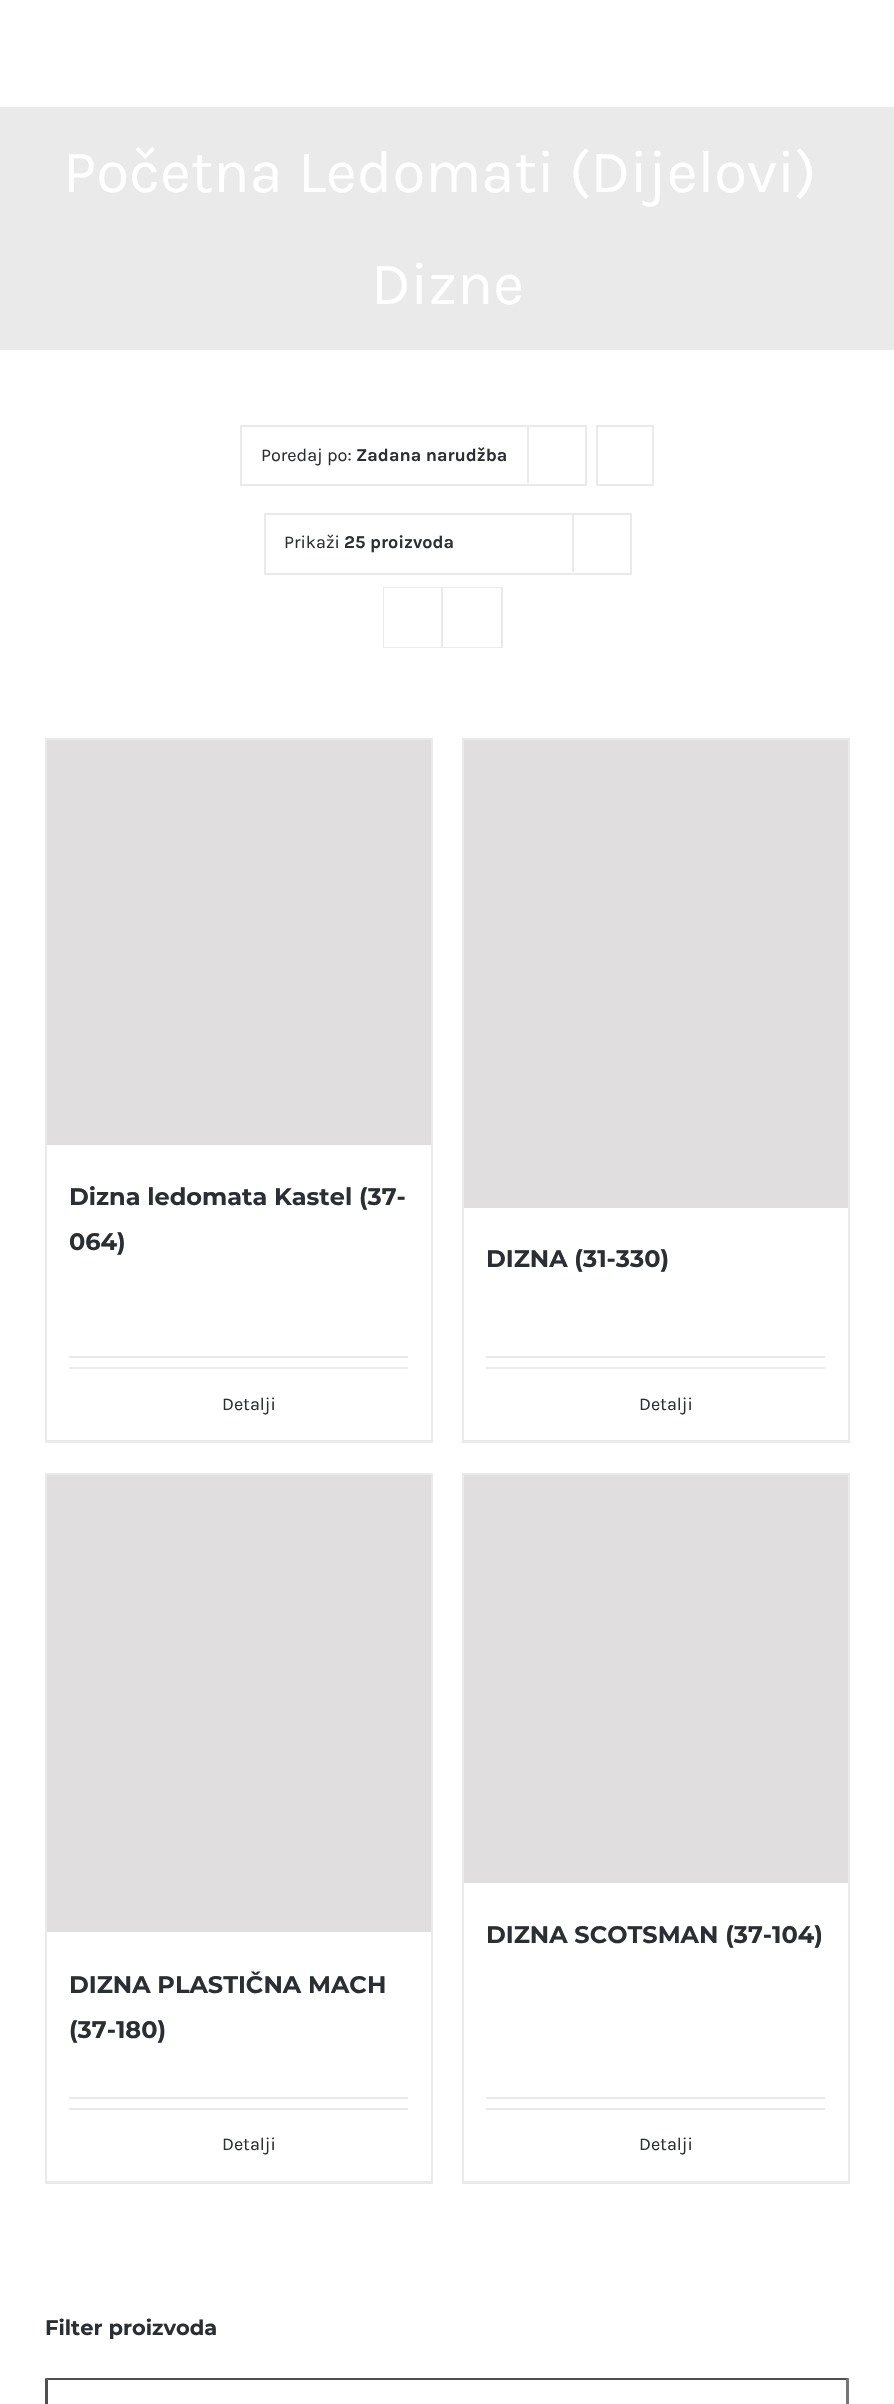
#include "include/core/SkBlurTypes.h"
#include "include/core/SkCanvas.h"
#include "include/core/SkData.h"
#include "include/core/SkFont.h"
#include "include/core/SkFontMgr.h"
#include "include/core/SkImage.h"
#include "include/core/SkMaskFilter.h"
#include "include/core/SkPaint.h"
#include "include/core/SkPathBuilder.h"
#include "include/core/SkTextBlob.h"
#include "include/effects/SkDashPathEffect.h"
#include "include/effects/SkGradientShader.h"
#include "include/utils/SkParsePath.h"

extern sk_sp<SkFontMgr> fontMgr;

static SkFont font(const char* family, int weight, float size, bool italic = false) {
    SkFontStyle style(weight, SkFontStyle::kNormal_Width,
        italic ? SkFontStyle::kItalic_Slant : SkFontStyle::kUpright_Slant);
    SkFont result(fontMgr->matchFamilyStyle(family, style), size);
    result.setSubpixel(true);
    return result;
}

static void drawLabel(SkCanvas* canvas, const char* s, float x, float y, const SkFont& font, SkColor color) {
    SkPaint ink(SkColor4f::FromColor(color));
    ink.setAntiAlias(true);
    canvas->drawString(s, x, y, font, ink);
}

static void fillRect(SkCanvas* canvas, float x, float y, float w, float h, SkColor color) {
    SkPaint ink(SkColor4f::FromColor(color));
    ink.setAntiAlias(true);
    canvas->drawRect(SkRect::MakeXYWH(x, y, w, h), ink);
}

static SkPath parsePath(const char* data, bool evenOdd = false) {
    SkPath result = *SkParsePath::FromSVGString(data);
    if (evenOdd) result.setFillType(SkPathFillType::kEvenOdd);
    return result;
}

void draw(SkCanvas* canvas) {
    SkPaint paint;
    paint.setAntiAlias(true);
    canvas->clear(0xFFFFFFFF);
    fillRect(canvas, 0, 107, 894, 243, 0xFFEAEAEA);
    SkFont font1 = font("Karla", 400, 60);
    drawLabel(canvas, "Početna", 63, 192, font1, 0xFFFFFFFF);
    drawLabel(canvas, "Ledomati (Dijelovi)", 298, 192, font1, 0xFFFFFFFF);
    drawLabel(canvas, "Dizne", 371, 304, font1, 0xFFFFFFFF);
    paint.setStroke(true);
    paint.setStrokeWidth(2);
    paint.setColor(0xFFEAEAEA);
    canvas->drawRect(SkRect::MakeXYWH(241, 426, 345, 59), paint);
    SkFont font2 = font("Karla", 400, 18);
    drawLabel(canvas, "Poredaj po:", 261, 461, font2, 0xFF2B2E32);
    SkFont font3 = font("Karla", 700, 18);
    drawLabel(canvas, "Zadana narudžba", 356, 461, font3, 0xFF2B2E32);
    fillRect(canvas, 527, 425, 2, 58, 0xFFEAEAEA);
    canvas->drawRect(SkRect::MakeXYWH(597, 426, 56, 59), paint);
    canvas->drawRect(SkRect::MakeXYWH(265, 514, 366, 60), paint);
    drawLabel(canvas, "Prikaži", 284, 548, font2, 0xFF2B2E32);
    drawLabel(canvas, "25 proizvoda", 344, 548, font3, 0xFF2B2E32);
    fillRect(canvas, 572, 513, 2, 59, 0xFFEAEAEA);
    canvas->drawRect(SkRect::MakeXYWH(384, 588, 118, 59), paint);
    fillRect(canvas, 384, 588, 57, 59, 0xFFFFFFFF);
    fillRect(canvas, 441, 588, 2, 59, 0xFFEAEAEA);
    fillRect(canvas, 443, 588, 58, 59, 0xFFFFFFFF);
    fillRect(canvas, 45, 738, 387, 2, 0xFFEAEAEA);
    fillRect(canvas, 431, 738, 2, 705, 0xFFEAEAEA);
    fillRect(canvas, 45, 1440, 387, 3, 0xFFEAEAEA);
    fillRect(canvas, 45, 738, 2, 705, 0xFFEAEAEA);
    fillRect(canvas, 47, 740, 384, 405, 0xFFE0DEDE);
    SkFont font4 = font("Montserrat", 700, 24);
    drawLabel(canvas, "Dizna ledomata Kastel (37-", 69, 1205, font4, 0xFF2B2E32);
    drawLabel(canvas, "064)", 69, 1250, font4, 0xFF2B2E32);
    fillRect(canvas, 69, 1356, 339, 2, 0xFFEAEAEA);
    fillRect(canvas, 69, 1367, 339, 2, 0xFFEAEAEA);
    drawLabel(canvas, "Detalji", 222, 1410, font2, 0xFF2B2E32);
    fillRect(canvas, 462, 738, 387, 2, 0xFFEAEAEA);
    fillRect(canvas, 848, 738, 2, 705, 0xFFEAEAEA);
    fillRect(canvas, 462, 1440, 387, 3, 0xFFEAEAEA);
    fillRect(canvas, 462, 738, 2, 705, 0xFFEAEAEA);
    fillRect(canvas, 464, 740, 384, 468, 0xFFE0DEDE);
    drawLabel(canvas, "DIZNA (31-330)", 486, 1267, font4, 0xFF2B2E32);
    fillRect(canvas, 486, 1356, 339, 2, 0xFFEAEAEA);
    fillRect(canvas, 486, 1367, 339, 2, 0xFFEAEAEA);
    drawLabel(canvas, "Detalji", 639, 1410, font2, 0xFF2B2E32);
    fillRect(canvas, 45, 1473, 387, 2, 0xFFEAEAEA);
    fillRect(canvas, 431, 1473, 2, 711, 0xFFEAEAEA);
    fillRect(canvas, 45, 2181, 387, 3, 0xFFEAEAEA);
    fillRect(canvas, 45, 1473, 2, 711, 0xFFEAEAEA);
    fillRect(canvas, 47, 1475, 384, 457, 0xFFE0DEDE);
    drawLabel(canvas, "DIZNA PLASTIČNA MACH", 69, 1993, font4, 0xFF2B2E32);
    drawLabel(canvas, "(37-180)", 69, 2038, font4, 0xFF2B2E32);
    fillRect(canvas, 69, 2097, 339, 2, 0xFFEAEAEA);
    fillRect(canvas, 69, 2108, 339, 2, 0xFFEAEAEA);
    drawLabel(canvas, "Detalji", 222, 2150, font2, 0xFF2B2E32);
    fillRect(canvas, 462, 1473, 387, 2, 0xFFEAEAEA);
    fillRect(canvas, 848, 1473, 2, 711, 0xFFEAEAEA);
    fillRect(canvas, 462, 2181, 387, 3, 0xFFEAEAEA);
    fillRect(canvas, 462, 1473, 2, 711, 0xFFEAEAEA);
    fillRect(canvas, 464, 1475, 384, 408, 0xFFE0DEDE);
    drawLabel(canvas, "DIZNA SCOTSMAN (37-104)", 486, 1943, font4, 0xFF2B2E32);
    fillRect(canvas, 486, 2097, 339, 2, 0xFFEAEAEA);
    fillRect(canvas, 486, 2108, 339, 2, 0xFFEAEAEA);
    drawLabel(canvas, "Detalji", 639, 2150, font2, 0xFF2B2E32);
    SkFont font5 = font("Montserrat", 700, 21);
    drawLabel(canvas, "Filter proizvoda", 45, 2335, font5, 0xFF2B2E32);
    paint.setStroke(false);
    paint.setColor(0xFF4F4F4F);
    canvas->drawPath(parsePath("M45 2378H849L846 2380H48Z"), paint);
    paint.setColor(0xFF767676);
    canvas->drawPath(parsePath("M849 2378V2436L846 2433V2380Z"), paint);
    paint.setColor(0xFF4F4F4F);
    canvas->drawPath(parsePath("M45 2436V2378L48 2380V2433Z"), paint);
}
